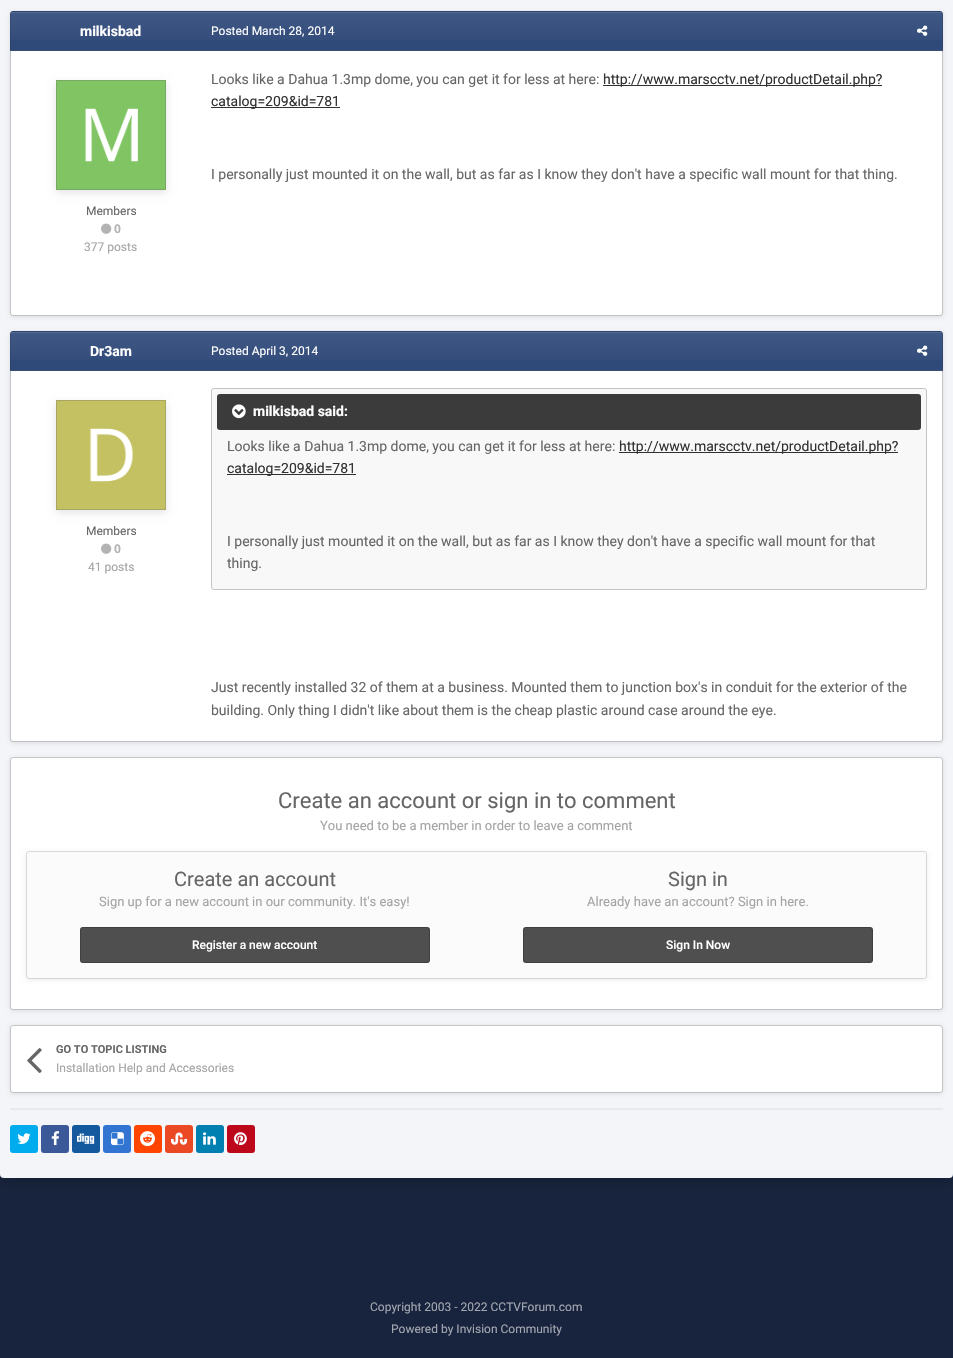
#include "include/core/SkBlurTypes.h"
#include "include/core/SkCanvas.h"
#include "include/core/SkData.h"
#include "include/core/SkFont.h"
#include "include/core/SkFontMgr.h"
#include "include/core/SkImage.h"
#include "include/core/SkMaskFilter.h"
#include "include/core/SkPaint.h"
#include "include/core/SkPathBuilder.h"
#include "include/core/SkTextBlob.h"
#include "include/effects/SkDashPathEffect.h"
#include "include/effects/SkGradientShader.h"
#include "include/utils/SkParsePath.h"

extern sk_sp<SkFontMgr> fontMgr;

static SkFont font(const char* family, int weight, float size, bool italic = false) {
    SkFontStyle style(weight, SkFontStyle::kNormal_Width,
        italic ? SkFontStyle::kItalic_Slant : SkFontStyle::kUpright_Slant);
    SkFont result(fontMgr->matchFamilyStyle(family, style), size);
    result.setSubpixel(true);
    return result;
}

static void drawLabel(SkCanvas* canvas, const char* s, float x, float y, const SkFont& font, SkColor color) {
    SkPaint ink(SkColor4f::FromColor(color));
    ink.setAntiAlias(true);
    canvas->drawString(s, x, y, font, ink);
}

static void fillRect(SkCanvas* canvas, float x, float y, float w, float h, SkColor color) {
    SkPaint ink(SkColor4f::FromColor(color));
    ink.setAntiAlias(true);
    canvas->drawRect(SkRect::MakeXYWH(x, y, w, h), ink);
}

static void fillRRect(SkCanvas* canvas, float x, float y, float w, float h, float radius, SkColor color) {
    SkPaint ink(SkColor4f::FromColor(color));
    ink.setAntiAlias(true);
    canvas->drawRoundRect(SkRect::MakeXYWH(x, y, w, h), radius, radius, ink);
}

static void drawPhoto(SkCanvas* canvas, const char* path, float x, float y, float w, float h) {
    auto image = SkImages::DeferredFromEncodedData(SkData::MakeFromFileName(path));
    canvas->drawImageRect(image, SkRect::MakeXYWH(x, y, w, h), SkSamplingOptions());
}

static SkPath parsePath(const char* data, bool evenOdd = false) {
    SkPath result = *SkParsePath::FromSVGString(data);
    if (evenOdd) result.setFillType(SkPathFillType::kEvenOdd);
    return result;
}

void draw(SkCanvas* canvas) {
    SkPaint paint;
    paint.setAntiAlias(true);
    canvas->clear(0xFF18243D);
    paint.setColor(0x33000000);
    paint.setMaskFilter(SkMaskFilter::MakeBlur(kNormal_SkBlurStyle, 8));
    canvas->drawRoundRect(SkRect::MakeXYWH(0, -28, 953, 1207), 4, 4, paint);
    paint.setMaskFilter(nullptr);
    fillRRect(canvas, 0, -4, 953, 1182, 4, 0xFF2F4979);
    fillRRect(canvas, 0, -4, 953, 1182, 4, 0xF0FFFFFF);
    paint.setColor(0x1A000000);
    paint.setMaskFilter(SkMaskFilter::MakeBlur(kNormal_SkBlurStyle, 2));
    canvas->drawRoundRect(SkRect::MakeXYWH(10, 12, 933, 305), 3, 3, paint);
    paint.setMaskFilter(nullptr);
    fillRRect(canvas, 11, 12, 931, 303, 2, 0xFFFFFFFF);
    paint.setStroke(true);
    paint.setStrokeWidth(1);
    paint.setColor(0x26000000);
    canvas->drawRoundRect(SkRect::MakeXYWH(10.5f, 11.5f, 932, 304), 2.5f, 2.5f, paint);
    paint.setStroke(false);
    paint.setColor(0xFF2F4979);
    canvas->drawPath(parsePath("M13 11H940C941.5 11 943 12.5 943 14V51H10V14C10 12.5 11.5 11 13 11Z"), paint);
    {
        const SkColor colors[] = {0x14FFFFFF, 0x00FFFFFF};
        const float stops[] = {0, 1};
        const SkPoint ends[] = {{477, 12}, {477, 50}};
        paint.setShader(SkGradientShader::MakeLinear(ends, colors, stops, 2, SkTileMode::kClamp));
        paint.setAlpha(255);
    }
    canvas->drawRect(SkRect::MakeXYWH(10, 12, 933, 28), paint);
    {
        const SkColor colors[] = {0xFF405884, 0xFF2F4979};
        const float stops[] = {0, 1};
        const SkPoint ends[] = {{477, 50}, {477, 88}};
        paint.setShader(SkGradientShader::MakeLinear(ends, colors, stops, 2, SkTileMode::kClamp));
        paint.setAlpha(255);
    }
    canvas->drawRect(SkRect::MakeXYWH(10, 50, 933, 1), paint);
    paint.setShader(nullptr);
    paint.setColor(0xFF526890);
    canvas->drawPath(parsePath("M13 13H940C941 13 942 14 942 15V14L941 12H13C11 12 11 14 11 15C11 14 12 13 13 13Z"), paint);
    paint.setStroke(true);
    paint.setColor(0x1A000000);
    canvas->drawPath(parsePath("M13 11.5H940C941.5 11.5 942.5 12.5 942.5 14V50.5H10.5V14C10.5 12.5 11.5 11.5 13 11.5Z"), paint);
    SkFont font1 = font("Roboto", 700, 14);
    drawLabel(canvas, "milkisbad", 80, 36, font1, 0xFFFFFFFF);
    drawPhoto(canvas, "assets/img1.png", 57, 81, 108, 108);
    canvas->save();
    canvas->clipPath(parsePath("M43 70H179V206H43ZM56 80H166V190H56Z", true), true);
    paint.setStroke(false);
    paint.setMaskFilter(SkMaskFilter::MakeBlur(kNormal_SkBlurStyle, 4));
    canvas->drawRect(SkRect::MakeXYWH(56, 83, 110, 110), paint);
    paint.setMaskFilter(nullptr);
    canvas->restore();
    paint.setStroke(true);
    paint.setColor(0xFF78A864);
    canvas->drawRect(SkRect::MakeXYWH(56.5f, 80.5f, 109, 109), paint);
    SkFont font2 = font("Roboto", 400, 12);
    drawLabel(canvas, "Members", 86, 215, font2, 0xFF666666);
    drawPhoto(canvas, "assets/img2.png", 101, 223, 11, 11);
    SkFont font3 = font("Roboto", 700, 12);
    drawLabel(canvas, "0", 114, 233, font3, 0xFFB3B3B3);
    drawLabel(canvas, "377 posts", 84, 251, font2, 0xFFA4A4A4);
    drawLabel(canvas, "Posted March 28, 2014", 211, 35, font2, 0xFFFFFFFF);
    drawPhoto(canvas, "assets/img3.png", 917, 25, 11, 11);
    SkFont font4 = font("Roboto", 400, 14);
    drawLabel(canvas, "Looks like a Dahua 1.3mp dome, you can get it for less at here:", 211, 84, font4, 0xFF666666);
    fillRect(canvas, 603, 85, 279, 1, 0xFF313131);
    drawLabel(canvas, "http://www.marscctv.net/productDetail.php?", 603, 84, font4, 0xFF313131);
    fillRect(canvas, 211, 107, 129, 1, 0xFF313131);
    drawLabel(canvas, "catalog=209&id=781", 211, 106, font4, 0xFF313131);
    drawLabel(canvas, "I personally just mounted it on the wall, but as far as I know they don't have a specific wall mount for that thing.", 211, 179, font4, 0xFF666666);
    paint.setStroke(false);
    paint.setColor(0x1A000000);
    paint.setMaskFilter(SkMaskFilter::MakeBlur(kNormal_SkBlurStyle, 2));
    canvas->drawRoundRect(SkRect::MakeXYWH(10, 332, 933, 411), 3, 3, paint);
    paint.setMaskFilter(nullptr);
    fillRRect(canvas, 11, 332, 931, 409, 2, 0xFFFFFFFF);
    paint.setStroke(true);
    paint.setColor(0x26000000);
    canvas->drawRoundRect(SkRect::MakeXYWH(10.5f, 331.5f, 932, 410), 2.5f, 2.5f, paint);
    paint.setStroke(false);
    paint.setColor(0xFF2F4979);
    canvas->drawPath(parsePath("M13 331H940C941.5 331 943 332.5 943 334V371H10V334C10 332.5 11.5 331 13 331Z"), paint);
    {
        const SkColor colors[] = {0x14FFFFFF, 0x00FFFFFF};
        const float stops[] = {0, 1};
        const SkPoint ends[] = {{477, 332}, {477, 370}};
        paint.setShader(SkGradientShader::MakeLinear(ends, colors, stops, 2, SkTileMode::kClamp));
        paint.setAlpha(255);
    }
    canvas->drawRect(SkRect::MakeXYWH(10, 332, 933, 28), paint);
    {
        const SkColor colors[] = {0xFF405884, 0xFF2F4979};
        const float stops[] = {0, 1};
        const SkPoint ends[] = {{477, 370}, {477, 408}};
        paint.setShader(SkGradientShader::MakeLinear(ends, colors, stops, 2, SkTileMode::kClamp));
        paint.setAlpha(255);
    }
    canvas->drawRect(SkRect::MakeXYWH(10, 370, 933, 1), paint);
    paint.setShader(nullptr);
    paint.setColor(0xFF526890);
    canvas->drawPath(parsePath("M13 333H940C941 333 942 334 942 335V334L941 332H13C11 332 11 334 11 335C11 334 12 333 13 333Z"), paint);
    paint.setStroke(true);
    paint.setColor(0x1A000000);
    canvas->drawPath(parsePath("M13 331.5H940C941.5 331.5 942.5 332.5 942.5 334V370.5H10.5V334C10.5 332.5 11.5 331.5 13 331.5Z"), paint);
    drawLabel(canvas, "Dr3am", 90, 356, font1, 0xFFFFFFFF);
    drawPhoto(canvas, "assets/img4.png", 57, 401, 108, 108);
    canvas->save();
    canvas->clipPath(parsePath("M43 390H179V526H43ZM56 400H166V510H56Z", true), true);
    paint.setStroke(false);
    paint.setMaskFilter(SkMaskFilter::MakeBlur(kNormal_SkBlurStyle, 4));
    canvas->drawRect(SkRect::MakeXYWH(56, 403, 110, 110), paint);
    paint.setMaskFilter(nullptr);
    canvas->restore();
    paint.setStroke(true);
    paint.setColor(0xFFA8A664);
    canvas->drawRect(SkRect::MakeXYWH(56.5f, 400.5f, 109, 109), paint);
    drawLabel(canvas, "Members", 86, 535, font2, 0xFF666666);
    drawPhoto(canvas, "assets/img2.png", 101, 543, 11, 11);
    drawLabel(canvas, "0", 114, 553, font3, 0xFFB3B3B3);
    drawLabel(canvas, "41 posts", 88, 571, font2, 0xFFA4A4A4);
    drawLabel(canvas, "Posted April 3, 2014", 211, 355, font2, 0xFFFFFFFF);
    drawPhoto(canvas, "assets/img3.png", 917, 345, 11, 11);
    paint.setStroke(false);
    paint.setColor(0xFFF8F8F8);
    canvas->drawRoundRect(SkRect::MakeXYWH(211.5f, 388.5f, 715, 201), 2.5f, 2.5f, paint);
    paint.setStroke(true);
    paint.setColor(0xFFC4C4C4);
    canvas->drawRoundRect(SkRect::MakeXYWH(211.5f, 388.5f, 715, 201), 2.5f, 2.5f, paint);
    fillRRect(canvas, 217, 394, 704, 36, 3, 0xFF3B3B3B);
    drawPhoto(canvas, "assets/img5.png", 232, 404, 14, 15);
    drawLabel(canvas, "milkisbad said:", 253, 416, font1, 0xFFFFFFFF);
    drawLabel(canvas, "Looks like a Dahua 1.3mp dome, you can get it for less at here:", 227, 451, font4, 0xFF666666);
    fillRect(canvas, 619, 452, 279, 1, 0xFF313131);
    drawLabel(canvas, "http://www.marscctv.net/productDetail.php?", 619, 451, font4, 0xFF313131);
    fillRect(canvas, 227, 474, 129, 1, 0xFF313131);
    drawLabel(canvas, "catalog=209&id=781", 227, 473, font4, 0xFF313131);
    drawLabel(canvas, "I personally just mounted it on the wall, but as far as I know they don't have a specific wall mount for that", 227, 546, font4, 0xFF666666);
    drawLabel(canvas, "thing.", 227, 568, font4, 0xFF666666);
    drawLabel(canvas, "Just recently installed 32 of them at a business. Mounted them to junction box's in conduit for the exterior of the", 211, 692, font4, 0xFF666666);
    drawLabel(canvas, "building. Only thing I didn't like about them is the cheap plastic around case around the eye.", 211, 715, font4, 0xFF666666);
    paint.setStroke(false);
    paint.setColor(0x1A000000);
    paint.setMaskFilter(SkMaskFilter::MakeBlur(kNormal_SkBlurStyle, 2));
    canvas->drawRoundRect(SkRect::MakeXYWH(10, 758, 933, 253), 3, 3, paint);
    paint.setMaskFilter(nullptr);
    fillRRect(canvas, 11, 758, 931, 251, 2, 0xFFFFFFFF);
    paint.setStroke(true);
    paint.setColor(0x26000000);
    canvas->drawRoundRect(SkRect::MakeXYWH(10.5f, 757.5f, 932, 252), 2.5f, 2.5f, paint);
    SkFont font5 = font("Roboto", 400, 22);
    drawLabel(canvas, "Create an account or sign in to comment", 278, 808, font5, 0xFF666666);
    SkFont font6 = font("Roboto", 400, 13);
    drawLabel(canvas, "You need to be a member in order to leave a comment", 320, 830, font6, 0xFFA4A4A4);
    paint.setStroke(false);
    paint.setColor(0x12000000);
    paint.setMaskFilter(SkMaskFilter::MakeBlur(kNormal_SkBlurStyle, 2.5f));
    canvas->drawRoundRect(SkRect::MakeXYWH(26, 852, 901, 128), 3, 3, paint);
    paint.setMaskFilter(nullptr);
    fillRRect(canvas, 27, 852, 899, 126, 2, 0xFFFBFBFB);
    paint.setStroke(true);
    paint.setColor(0x33666666);
    canvas->drawRoundRect(SkRect::MakeXYWH(26.5f, 851.5f, 900, 127), 2.5f, 2.5f, paint);
    SkFont font7 = font("Roboto", 400, 20);
    drawLabel(canvas, "Create an account", 174, 886, font7, 0xFF666666);
    drawLabel(canvas, "Sign up for a new account in our community. It's easy!", 99, 906, font6, 0xFFA4A4A4);
    fillRRect(canvas, 80, 927, 350, 36, 3, 0xFF4F4F4F);
    paint.setColor(0x33000000);
    canvas->drawRoundRect(SkRect::MakeXYWH(80.5f, 927.5f, 349, 35), 2.5f, 2.5f, paint);
    SkFont font8 = font("Roboto", 500, 12);
    drawLabel(canvas, "Register a new account", 192, 949, font8, 0xFFFFFFFF);
    drawLabel(canvas, "Sign in", 668, 886, font7, 0xFF666666);
    drawLabel(canvas, "Already have an account? Sign in here.", 587, 906, font6, 0xFFA4A4A4);
    fillRRect(canvas, 523, 927, 350, 36, 3, 0xFF4F4F4F);
    canvas->drawRoundRect(SkRect::MakeXYWH(523.5f, 927.5f, 349, 35), 2.5f, 2.5f, paint);
    drawLabel(canvas, "Sign In Now", 666, 949, font8, 0xFFFFFFFF);
    paint.setStroke(false);
    paint.setColor(0x1A000000);
    paint.setMaskFilter(SkMaskFilter::MakeBlur(kNormal_SkBlurStyle, 2));
    canvas->drawRoundRect(SkRect::MakeXYWH(10, 1026, 933, 68), 3, 3, paint);
    paint.setMaskFilter(nullptr);
    fillRRect(canvas, 11, 1026, 931, 66, 2, 0xFFFFFFFF);
    paint.setStroke(true);
    paint.setColor(0x26000000);
    canvas->drawRoundRect(SkRect::MakeXYWH(10.5f, 1025.5f, 932, 67), 2.5f, 2.5f, paint);
    drawPhoto(canvas, "assets/img6.png", 27, 1048, 15, 25);
    SkFont font9 = font("Roboto", 700, 11);
    drawLabel(canvas, "GO TO TOPIC LISTING", 56, 1053, font9, 0xFF666666);
    drawLabel(canvas, "Installation Help and Accessories", 56, 1072, font2, 0xFFA4A4A4);
    fillRect(canvas, 10, 1108, 933, 2, 0xFFE7E9EB);
    fillRRect(canvas, 10, 1125, 28, 28, 3, 0xFF00ACED);
    drawPhoto(canvas, "assets/img7.png", 17, 1133, 14, 11);
    fillRRect(canvas, 41, 1125, 28, 28, 3, 0xFF3B5998);
    drawPhoto(canvas, "assets/img8.png", 51, 1131, 9, 15);
    fillRRect(canvas, 72, 1125, 28, 28, 3, 0xFF14589E);
    drawPhoto(canvas, "assets/img9.png", 77, 1133, 18, 11);
    fillRRect(canvas, 103, 1125, 28, 28, 3, 0xFF3274D1);
    drawPhoto(canvas, "assets/img10.png", 111, 1132, 13, 14);
    fillRRect(canvas, 134, 1125, 28, 28, 3, 0xFFFF4500);
    drawPhoto(canvas, "assets/img11.png", 140, 1131, 15, 16);
    fillRRect(canvas, 165, 1125, 28, 28, 3, 0xFFEB4924);
    drawPhoto(canvas, "assets/img12.png", 171, 1132, 17, 13);
    fillRRect(canvas, 196, 1125, 28, 28, 3, 0xFF007FB1);
    drawPhoto(canvas, "assets/img13.png", 203, 1132, 13, 13);
    fillRRect(canvas, 227, 1125, 28, 28, 3, 0xFFBD081C);
    drawPhoto(canvas, "assets/img14.png", 234, 1132, 13, 14);
    drawLabel(canvas, "Copyright 2003 - 2022 CCTVForum.com", 370, 1311, font2, 0xFFA3A7B1);
    drawLabel(canvas, "Powered by Invision Community", 391, 1333, font2, 0xFFA3A7B1);
}
